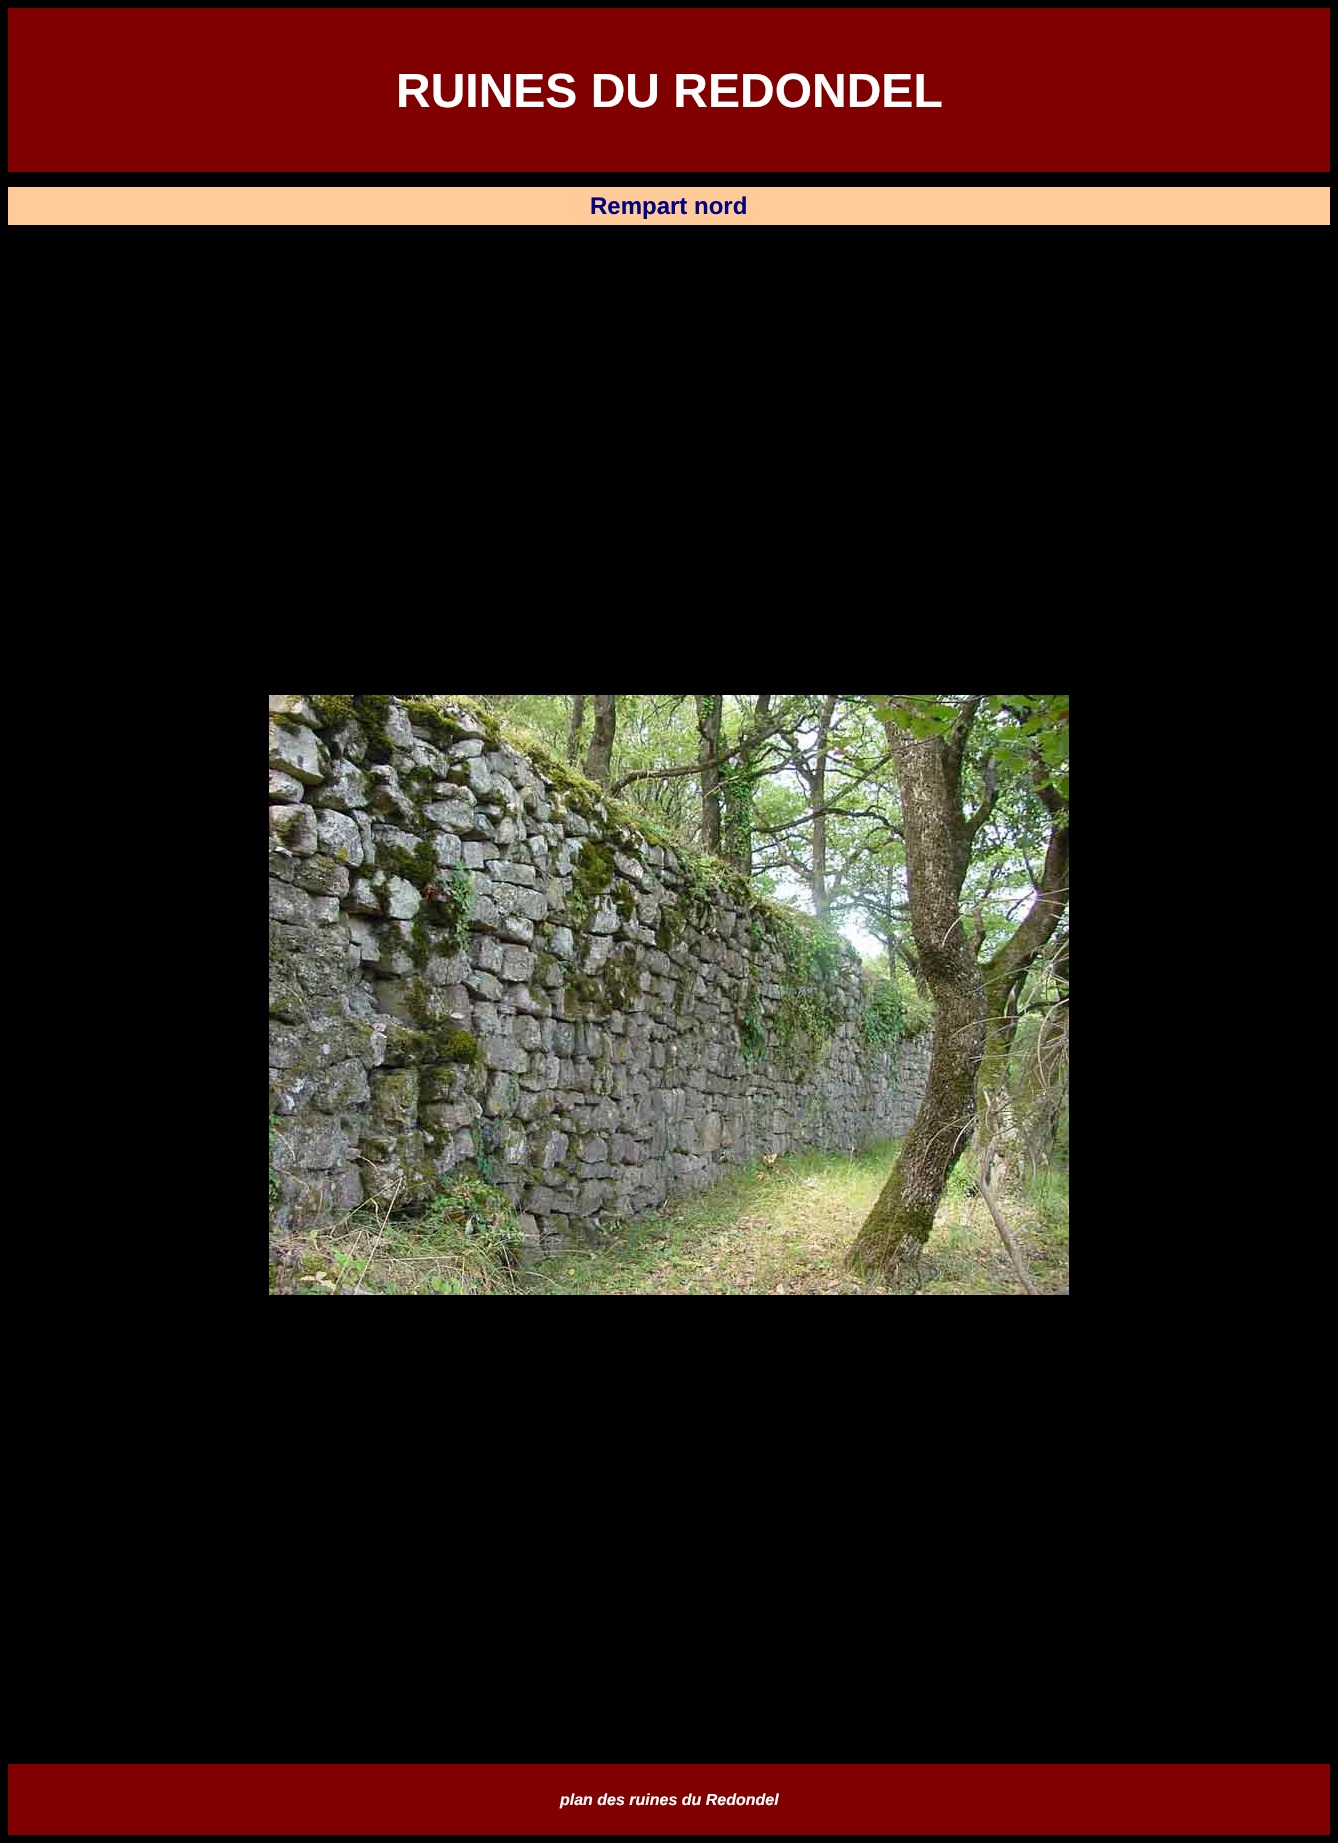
#include "include/core/SkBlurTypes.h"
#include "include/core/SkCanvas.h"
#include "include/core/SkData.h"
#include "include/core/SkFont.h"
#include "include/core/SkFontMgr.h"
#include "include/core/SkImage.h"
#include "include/core/SkMaskFilter.h"
#include "include/core/SkPaint.h"
#include "include/core/SkPathBuilder.h"
#include "include/core/SkTextBlob.h"
#include "include/effects/SkDashPathEffect.h"
#include "include/effects/SkGradientShader.h"
#include "include/utils/SkParsePath.h"

extern sk_sp<SkFontMgr> fontMgr;

static SkFont font(const char* family, int weight, float size, bool italic = false) {
    SkFontStyle style(weight, SkFontStyle::kNormal_Width,
        italic ? SkFontStyle::kItalic_Slant : SkFontStyle::kUpright_Slant);
    SkFont result(fontMgr->matchFamilyStyle(family, style), size);
    result.setSubpixel(true);
    return result;
}

static void drawLabel(SkCanvas* canvas, const char* s, float x, float y, const SkFont& font, SkColor color) {
    SkPaint ink(SkColor4f::FromColor(color));
    ink.setAntiAlias(true);
    canvas->drawString(s, x, y, font, ink);
}

static void fillRect(SkCanvas* canvas, float x, float y, float w, float h, SkColor color) {
    SkPaint ink(SkColor4f::FromColor(color));
    ink.setAntiAlias(true);
    canvas->drawRect(SkRect::MakeXYWH(x, y, w, h), ink);
}

static void drawPhoto(SkCanvas* canvas, const char* path, float x, float y, float w, float h) {
    auto image = SkImages::DeferredFromEncodedData(SkData::MakeFromFileName(path));
    canvas->drawImageRect(image, SkRect::MakeXYWH(x, y, w, h), SkSamplingOptions());
}

void draw(SkCanvas* canvas) {
    SkPaint paint;
    paint.setAntiAlias(true);
    canvas->clear(0xFF000000);
    fillRect(canvas, 8, 8, 1322, 164, 0xFF800000);
    SkFont font1 = font("Liberation Sans", 700, 48);
    drawLabel(canvas, "RUINES DU REDONDEL", 396, 107, font1, 0xFFFFFFFF);
    fillRect(canvas, 8, 187, 1322, 38, 0xFFFFCC99);
    SkFont font2 = font("Liberation Sans", 700, 24);
    drawLabel(canvas, "Rempart nord", 590, 214, font2, 0xFF000080);
    drawPhoto(canvas, "assets/img1.png", 269, 695, 800, 600);
    fillRect(canvas, 8, 1764, 1322, 71, 0xFF800000);
    SkFont font3 = font("Liberation Sans", 700, 16, true);
    drawLabel(canvas, "plan des ruines du Redondel", 560, 1805, font3, 0xFFFFFFFF);
}
